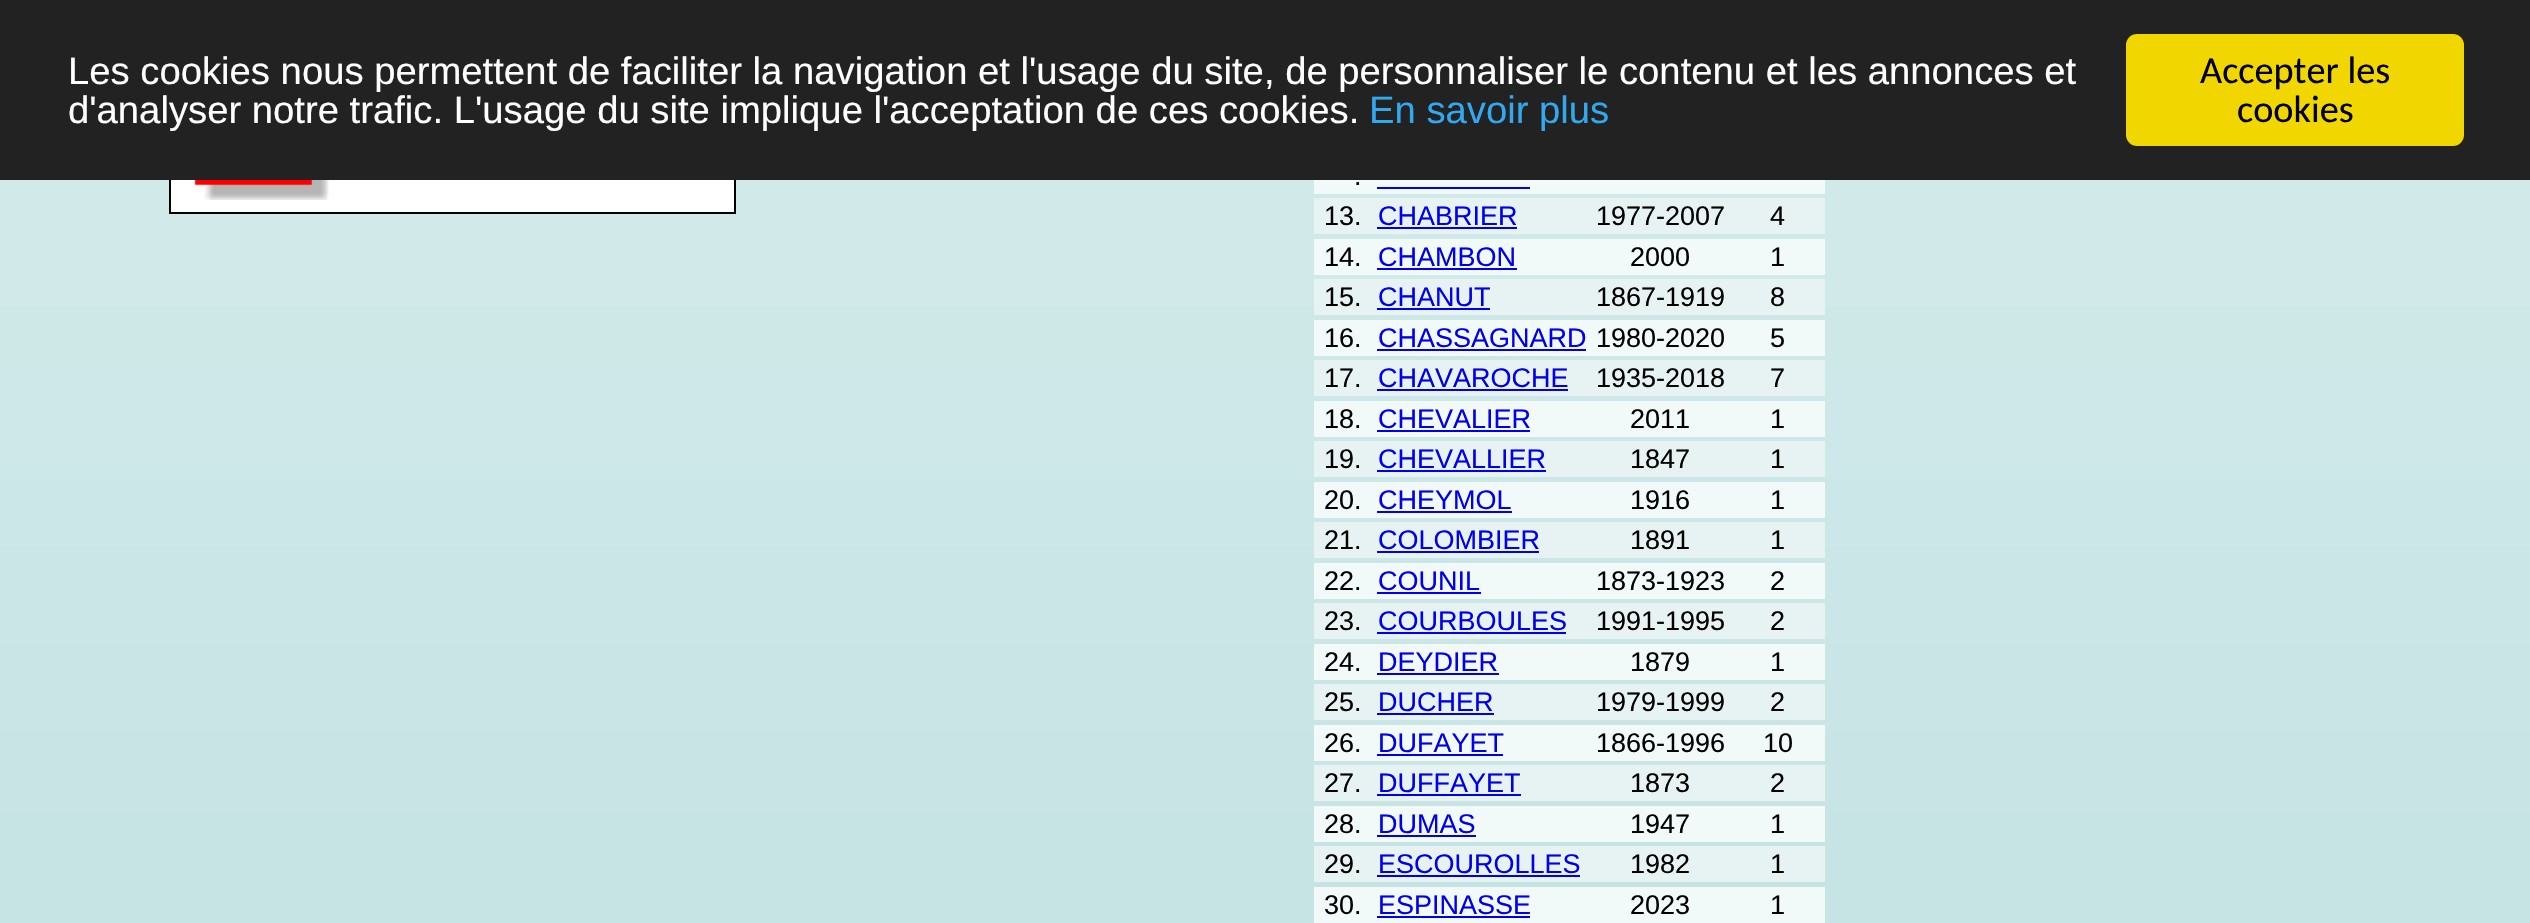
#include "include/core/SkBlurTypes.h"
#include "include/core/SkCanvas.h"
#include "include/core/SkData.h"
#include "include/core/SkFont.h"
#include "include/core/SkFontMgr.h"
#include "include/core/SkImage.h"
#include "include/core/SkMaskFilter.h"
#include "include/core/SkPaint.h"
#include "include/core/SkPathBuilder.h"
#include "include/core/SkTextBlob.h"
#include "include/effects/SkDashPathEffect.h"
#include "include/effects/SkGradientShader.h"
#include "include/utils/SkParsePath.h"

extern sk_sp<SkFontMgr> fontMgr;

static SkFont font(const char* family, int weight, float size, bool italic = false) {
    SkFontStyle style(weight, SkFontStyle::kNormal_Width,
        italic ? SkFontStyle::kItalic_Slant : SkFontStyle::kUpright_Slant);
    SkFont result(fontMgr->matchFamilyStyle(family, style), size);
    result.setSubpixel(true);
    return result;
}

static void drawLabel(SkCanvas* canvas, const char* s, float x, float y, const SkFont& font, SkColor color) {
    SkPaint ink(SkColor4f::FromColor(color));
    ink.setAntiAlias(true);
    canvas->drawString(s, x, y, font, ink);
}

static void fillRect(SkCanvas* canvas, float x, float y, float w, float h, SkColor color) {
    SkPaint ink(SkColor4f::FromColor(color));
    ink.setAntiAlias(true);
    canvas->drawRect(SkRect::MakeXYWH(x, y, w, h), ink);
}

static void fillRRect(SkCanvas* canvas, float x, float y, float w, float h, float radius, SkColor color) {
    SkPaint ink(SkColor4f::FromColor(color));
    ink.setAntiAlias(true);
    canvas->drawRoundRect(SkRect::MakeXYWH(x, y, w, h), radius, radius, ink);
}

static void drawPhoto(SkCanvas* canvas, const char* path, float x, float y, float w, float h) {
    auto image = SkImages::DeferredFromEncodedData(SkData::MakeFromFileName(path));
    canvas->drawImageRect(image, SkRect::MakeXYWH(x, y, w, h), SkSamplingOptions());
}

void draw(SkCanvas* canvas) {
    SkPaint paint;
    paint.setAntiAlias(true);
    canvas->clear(0xFFFFFFFF);
    drawPhoto(canvas, "assets/img1.png", 0, 180, 2530, 743);
    fillRect(canvas, 171, 180, 563, 32, 0xFFFFFFFF);
    paint.setStroke(true);
    paint.setStrokeWidth(2);
    paint.setColor(0xFF000000);
    canvas->drawRect(SkRect::MakeXYWH(170, -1, 565, 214), paint);
    drawPhoto(canvas, "assets/img2.png", 194, 180, 135, 20);
    fillRect(canvas, 0, 0, 2530, 180, 0xFF222222);
    SkFont font1 = font("Liberation Sans", 400, 38.25f);
    drawLabel(canvas, "Les cookies nous permettent de faciliter la navigation et l'usage du site, de personnaliser le contenu et les annonces et", 68, 84, font1, 0xFFFFFFFF);
    drawLabel(canvas, "d'analyser notre trafic. L'usage du site implique l'acceptation de ces cookies.", 68, 123, font1, 0xFFFFFFFF);
    drawLabel(canvas, "En savoir plus", 1369, 123, font1, 0xFF31A8F0);
    fillRRect(canvas, 2126, 34, 338, 112, 11, 0xFFF1D600);
    SkFont font2 = font("Carlito", 400, 38.25f);
    drawLabel(canvas, "Accepter les", 2200, 83, font2, 0xFF000000);
    drawLabel(canvas, "cookies", 2237, 122, font2, 0xFF000000);
    fillRect(canvas, 1314, 180, 511, 14, 0xFFF2F9F9);
    SkFont font3 = font("Liberation Sans", 400, 27);
    drawLabel(canvas, ".", 1354, 185, font3, 0xFF000000);
    fillRect(canvas, 1377, 187, 153, 2, 0xFF0000EE);
    fillRect(canvas, 1314, 198, 511, 36, 0xFFE7F3F3);
    drawLabel(canvas, "13.", 1324, 225, font3, 0xFF000000);
    drawLabel(canvas, "CHABRIER", 1378, 225, font3, 0xFF0000EE);
    fillRect(canvas, 1377, 227, 140, 2, 0xFF0000EE);
    drawLabel(canvas, "1977-2007", 1596, 225, font3, 0xFF000000);
    drawLabel(canvas, "4", 1770, 225, font3, 0xFF000000);
    fillRect(canvas, 1314, 239, 511, 36, 0xFFF2F9F9);
    drawLabel(canvas, "14.", 1324, 266, font3, 0xFF000000);
    drawLabel(canvas, "CHAMBON", 1378, 266, font3, 0xFF0000EE);
    fillRect(canvas, 1377, 268, 140, 2, 0xFF0000EE);
    drawLabel(canvas, "2000", 1630, 266, font3, 0xFF000000);
    drawLabel(canvas, "1", 1770, 266, font3, 0xFF000000);
    fillRect(canvas, 1314, 279, 511, 36, 0xFFE7F3F3);
    drawLabel(canvas, "15.", 1324, 306, font3, 0xFF000000);
    drawLabel(canvas, "CHANUT", 1378, 306, font3, 0xFF0000EE);
    fillRect(canvas, 1377, 308, 113, 2, 0xFF0000EE);
    drawLabel(canvas, "1867-1919", 1596, 306, font3, 0xFF000000);
    drawLabel(canvas, "8", 1770, 306, font3, 0xFF000000);
    fillRect(canvas, 1314, 320, 511, 36, 0xFFF2F9F9);
    drawLabel(canvas, "16.", 1324, 347, font3, 0xFF000000);
    drawLabel(canvas, "CHASSAGNARD", 1378, 347, font3, 0xFF0000EE);
    fillRect(canvas, 1377, 349, 209, 2, 0xFF0000EE);
    drawLabel(canvas, "1980-2020", 1596, 347, font3, 0xFF000000);
    drawLabel(canvas, "5", 1770, 347, font3, 0xFF000000);
    fillRect(canvas, 1314, 360, 511, 36, 0xFFE7F3F3);
    drawLabel(canvas, "17.", 1324, 387, font3, 0xFF000000);
    drawLabel(canvas, "CHAVAROCHE", 1378, 387, font3, 0xFF0000EE);
    fillRect(canvas, 1377, 389, 191, 2, 0xFF0000EE);
    drawLabel(canvas, "1935-2018", 1596, 387, font3, 0xFF000000);
    drawLabel(canvas, "7", 1770, 387, font3, 0xFF000000);
    fillRect(canvas, 1314, 401, 511, 36, 0xFFF2F9F9);
    drawLabel(canvas, "18.", 1324, 428, font3, 0xFF000000);
    drawLabel(canvas, "CHEVALIER", 1378, 428, font3, 0xFF0000EE);
    fillRect(canvas, 1377, 430, 153, 2, 0xFF0000EE);
    drawLabel(canvas, "2011", 1630, 428, font3, 0xFF000000);
    drawLabel(canvas, "1", 1770, 428, font3, 0xFF000000);
    fillRect(canvas, 1314, 441, 511, 36, 0xFFE7F3F3);
    drawLabel(canvas, "19.", 1324, 468, font3, 0xFF000000);
    drawLabel(canvas, "CHEVALLIER", 1378, 468, font3, 0xFF0000EE);
    fillRect(canvas, 1377, 470, 169, 2, 0xFF0000EE);
    drawLabel(canvas, "1847", 1630, 468, font3, 0xFF000000);
    drawLabel(canvas, "1", 1770, 468, font3, 0xFF000000);
    fillRect(canvas, 1314, 482, 511, 36, 0xFFF2F9F9);
    drawLabel(canvas, "20.", 1324, 509, font3, 0xFF000000);
    drawLabel(canvas, "CHEYMOL", 1378, 509, font3, 0xFF0000EE);
    fillRect(canvas, 1377, 511, 135, 2, 0xFF0000EE);
    drawLabel(canvas, "1916", 1630, 509, font3, 0xFF000000);
    drawLabel(canvas, "1", 1770, 509, font3, 0xFF000000);
    fillRect(canvas, 1314, 522, 511, 36, 0xFFE7F3F3);
    drawLabel(canvas, "21.", 1324, 549, font3, 0xFF000000);
    drawLabel(canvas, "COLOMBIER", 1378, 549, font3, 0xFF0000EE);
    fillRect(canvas, 1377, 551, 162, 2, 0xFF0000EE);
    drawLabel(canvas, "1891", 1630, 549, font3, 0xFF000000);
    drawLabel(canvas, "1", 1770, 549, font3, 0xFF000000);
    fillRect(canvas, 1314, 563, 511, 36, 0xFFF2F9F9);
    drawLabel(canvas, "22.", 1324, 590, font3, 0xFF000000);
    drawLabel(canvas, "COUNIL", 1378, 590, font3, 0xFF0000EE);
    fillRect(canvas, 1377, 592, 104, 2, 0xFF0000EE);
    drawLabel(canvas, "1873-1923", 1596, 590, font3, 0xFF000000);
    drawLabel(canvas, "2", 1770, 590, font3, 0xFF000000);
    fillRect(canvas, 1314, 603, 511, 36, 0xFFE7F3F3);
    drawLabel(canvas, "23.", 1324, 630, font3, 0xFF000000);
    drawLabel(canvas, "COURBOULES", 1378, 630, font3, 0xFF0000EE);
    fillRect(canvas, 1377, 632, 189, 2, 0xFF0000EE);
    drawLabel(canvas, "1991-1995", 1596, 630, font3, 0xFF000000);
    drawLabel(canvas, "2", 1770, 630, font3, 0xFF000000);
    fillRect(canvas, 1314, 644, 511, 36, 0xFFF2F9F9);
    drawLabel(canvas, "24.", 1324, 671, font3, 0xFF000000);
    drawLabel(canvas, "DEYDIER", 1378, 671, font3, 0xFF0000EE);
    fillRect(canvas, 1377, 673, 122, 2, 0xFF0000EE);
    drawLabel(canvas, "1879", 1630, 671, font3, 0xFF000000);
    drawLabel(canvas, "1", 1770, 671, font3, 0xFF000000);
    fillRect(canvas, 1314, 684, 511, 36, 0xFFE7F3F3);
    drawLabel(canvas, "25.", 1324, 711, font3, 0xFF000000);
    drawLabel(canvas, "DUCHER", 1378, 711, font3, 0xFF0000EE);
    fillRect(canvas, 1377, 713, 117, 2, 0xFF0000EE);
    drawLabel(canvas, "1979-1999", 1596, 711, font3, 0xFF000000);
    drawLabel(canvas, "2", 1770, 711, font3, 0xFF000000);
    fillRect(canvas, 1314, 725, 511, 36, 0xFFF2F9F9);
    drawLabel(canvas, "26.", 1324, 752, font3, 0xFF000000);
    drawLabel(canvas, "DUFAYET", 1378, 752, font3, 0xFF0000EE);
    fillRect(canvas, 1377, 754, 126, 2, 0xFF0000EE);
    drawLabel(canvas, "1866-1996", 1596, 752, font3, 0xFF000000);
    drawLabel(canvas, "10", 1763, 752, font3, 0xFF000000);
    fillRect(canvas, 1314, 765, 511, 36, 0xFFE7F3F3);
    drawLabel(canvas, "27.", 1324, 792, font3, 0xFF000000);
    drawLabel(canvas, "DUFFAYET", 1378, 792, font3, 0xFF0000EE);
    fillRect(canvas, 1377, 794, 144, 2, 0xFF0000EE);
    drawLabel(canvas, "1873", 1630, 792, font3, 0xFF000000);
    drawLabel(canvas, "2", 1770, 792, font3, 0xFF000000);
    fillRect(canvas, 1314, 806, 511, 36, 0xFFF2F9F9);
    drawLabel(canvas, "28.", 1324, 833, font3, 0xFF000000);
    drawLabel(canvas, "DUMAS", 1378, 833, font3, 0xFF0000EE);
    fillRect(canvas, 1377, 835, 99, 2, 0xFF0000EE);
    drawLabel(canvas, "1947", 1630, 833, font3, 0xFF000000);
    drawLabel(canvas, "1", 1770, 833, font3, 0xFF000000);
    fillRect(canvas, 1314, 846, 511, 36, 0xFFE7F3F3);
    drawLabel(canvas, "29.", 1324, 873, font3, 0xFF000000);
    drawLabel(canvas, "ESCOUROLLES", 1378, 873, font3, 0xFF0000EE);
    fillRect(canvas, 1377, 875, 203, 2, 0xFF0000EE);
    drawLabel(canvas, "1982", 1630, 873, font3, 0xFF000000);
    drawLabel(canvas, "1", 1770, 873, font3, 0xFF000000);
    fillRect(canvas, 1314, 887, 511, 36, 0xFFF2F9F9);
    drawLabel(canvas, "30.", 1324, 914, font3, 0xFF000000);
    drawLabel(canvas, "ESPINASSE", 1378, 914, font3, 0xFF0000EE);
    fillRect(canvas, 1377, 916, 153, 2, 0xFF0000EE);
    drawLabel(canvas, "2023", 1630, 914, font3, 0xFF000000);
    drawLabel(canvas, "1", 1770, 914, font3, 0xFF000000);
}
